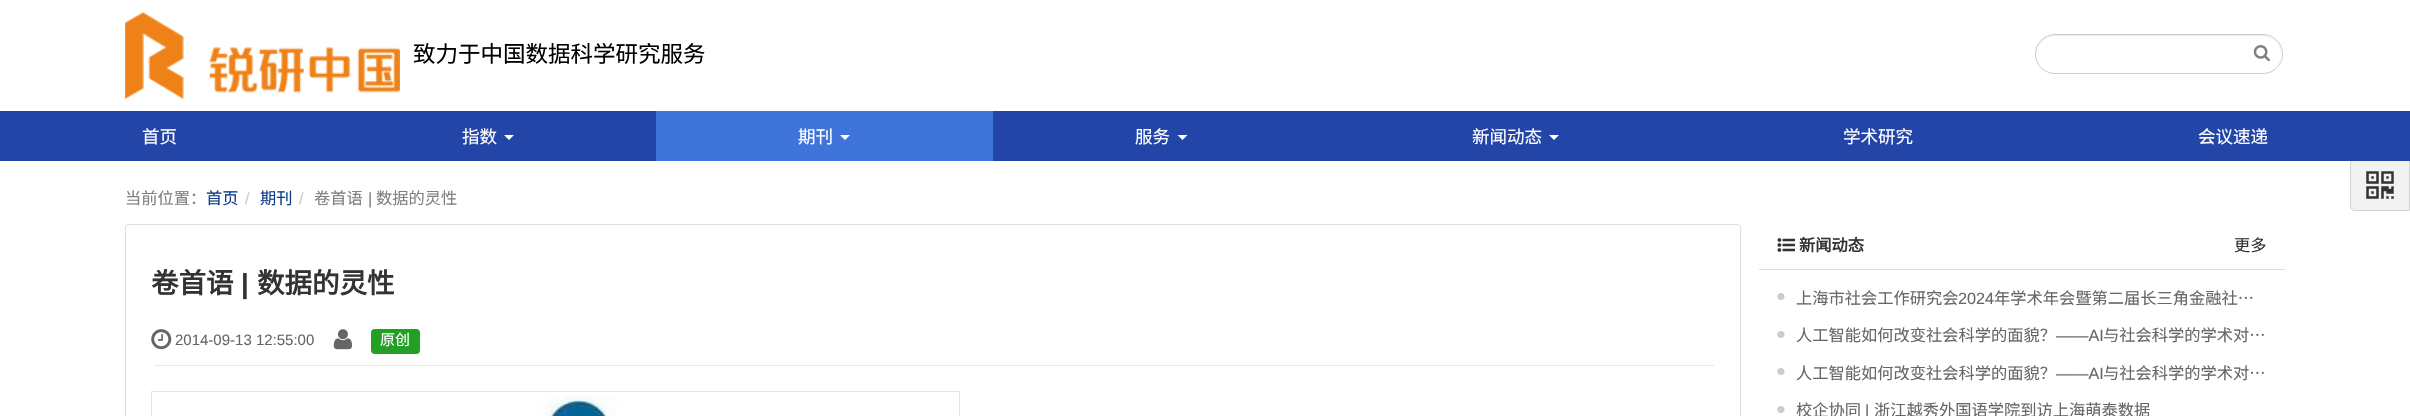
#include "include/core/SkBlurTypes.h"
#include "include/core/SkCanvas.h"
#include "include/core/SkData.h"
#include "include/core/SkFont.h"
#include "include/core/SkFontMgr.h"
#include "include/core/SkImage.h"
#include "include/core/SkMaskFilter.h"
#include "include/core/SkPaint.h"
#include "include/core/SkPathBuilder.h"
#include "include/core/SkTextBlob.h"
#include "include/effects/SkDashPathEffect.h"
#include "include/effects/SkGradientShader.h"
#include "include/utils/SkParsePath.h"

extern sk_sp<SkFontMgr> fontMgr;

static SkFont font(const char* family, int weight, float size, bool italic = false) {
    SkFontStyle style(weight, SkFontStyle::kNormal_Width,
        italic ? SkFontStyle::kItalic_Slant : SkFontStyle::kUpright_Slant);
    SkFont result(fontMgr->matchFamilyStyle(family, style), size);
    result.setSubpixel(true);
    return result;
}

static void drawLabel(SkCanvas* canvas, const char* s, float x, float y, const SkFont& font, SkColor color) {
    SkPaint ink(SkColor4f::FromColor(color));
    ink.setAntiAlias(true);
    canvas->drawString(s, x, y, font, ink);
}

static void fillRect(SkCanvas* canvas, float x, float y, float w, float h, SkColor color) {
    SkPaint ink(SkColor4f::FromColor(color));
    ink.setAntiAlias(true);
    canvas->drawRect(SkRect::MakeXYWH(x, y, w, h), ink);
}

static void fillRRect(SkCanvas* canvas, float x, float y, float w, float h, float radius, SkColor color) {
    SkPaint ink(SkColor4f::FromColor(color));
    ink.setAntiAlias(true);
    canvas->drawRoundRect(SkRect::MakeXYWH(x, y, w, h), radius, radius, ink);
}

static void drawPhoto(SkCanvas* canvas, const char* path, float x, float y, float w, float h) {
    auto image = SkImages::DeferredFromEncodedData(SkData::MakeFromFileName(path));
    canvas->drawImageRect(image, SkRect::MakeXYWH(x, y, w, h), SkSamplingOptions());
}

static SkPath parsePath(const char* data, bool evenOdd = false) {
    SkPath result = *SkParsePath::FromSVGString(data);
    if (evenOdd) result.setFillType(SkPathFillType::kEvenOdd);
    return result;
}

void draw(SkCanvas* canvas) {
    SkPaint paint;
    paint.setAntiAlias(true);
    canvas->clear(0xFFFFFFFF);
    drawPhoto(canvas, "assets/img1.png", 125, 12, 275, 87);
    SkFont font1 = font("Noto Sans CJK SC", 400, 22.5f);
    drawLabel(canvas, "致力于中国数据科学研究服务", 413, 62, font1, 0xFF000000);
    paint.setColor(0xFFECECEC);
    canvas->drawPath(parsePath("M2055 36H2262C2273 36 2281 45 2281 55C2282 27 2241 35 2228 35H2090C2076 35 2035 27 2036 55C2036 45 2045 36 2055 36Z"), paint);
    paint.setStroke(true);
    paint.setStrokeWidth(1);
    paint.setColor(0xFFCCCCCC);
    canvas->drawRoundRect(SkRect::MakeXYWH(2035.5f, 34.5f, 247, 39), 19.5f, 19.5f, paint);
    drawPhoto(canvas, "assets/img2.png", 2253, 45, 17, 17);
    paint.setStroke(false);
    paint.setColor(0xFFF2F2F2);
    canvas->drawPath(parsePath("M2355 159.5H2409.5V210.5H2355C2352.5 210.5 2350.5 208.5 2350.5 206V164C2350.5 161.5 2352.5 159.5 2355 159.5Z"), paint);
    paint.setStroke(true);
    paint.setColor(0xFFD3D3D3);
    canvas->drawPath(parsePath("M2355 159.5H2409.5V210.5H2355C2352.5 210.5 2350.5 208.5 2350.5 206V164C2350.5 161.5 2352.5 159.5 2355 159.5Z"), paint);
    fillRect(canvas, 0, 111, 2410, 50, 0xFF2445A8);
    SkFont font2 = font("Noto Sans CJK SC", 400, 17.5f);
    drawLabel(canvas, "首页", 142, 143, font2, 0xFFFFFFFF);
    drawLabel(canvas, "指数", 462, 143, font2, 0xFFFFFFFF);
    paint.setStroke(false);
    paint.setColor(0xFFFFFFFF);
    canvas->drawPath(parsePath("M504 135H514L509 140Z"), paint);
    fillRect(canvas, 656, 111, 337, 50, 0xFF3F75DB);
    drawLabel(canvas, "期刊", 798, 143, font2, 0xFFFFFFFF);
    canvas->drawPath(parsePath("M840 135H850L845 140Z"), paint);
    drawLabel(canvas, "服务", 1135, 143, font2, 0xFFFFFFFF);
    canvas->drawPath(parsePath("M1177.5 135H1187.5L1182.5 140Z"), paint);
    drawLabel(canvas, "新闻动态", 1472, 143, font2, 0xFFFFFFFF);
    canvas->drawPath(parsePath("M1549 135H1559L1554 140Z"), paint);
    drawLabel(canvas, "学术研究", 1843, 143, font2, 0xFFFFFFFF);
    drawLabel(canvas, "会议速递", 2198, 143, font2, 0xFFFFFFFF);
    SkFont font3 = font("Noto Sans CJK SC", 400, 16.25f);
    drawLabel(canvas, "当前位置：", 125, 204, font3, 0xFF808080);
    drawLabel(canvas, "首页", 206, 204, font3, 0xFF0D3D88);
    SkFont font4 = font("Liberation Sans", 400, 16.25f);
    drawLabel(canvas, "/", 245, 204, font4, 0xFFCCCCCC);
    drawLabel(canvas, "期刊", 260, 204, font3, 0xFF0D3D88);
    drawLabel(canvas, "/", 299, 204, font4, 0xFFCCCCCC);
    drawLabel(canvas, "卷首语", 314, 204, font3, 0xFF808080);
    drawLabel(canvas, "|", 368, 204, font4, 0xFF808080);
    drawLabel(canvas, "数据的灵性", 376, 204, font3, 0xFF808080);
    paint.setStroke(true);
    paint.setColor(0xFFDDDDDD);
    canvas->drawRoundRect(SkRect::MakeXYWH(125.5f, 224.5f, 1615, 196), 3.5f, 3.5f, paint);
    SkFont font5 = font("Noto Sans CJK SC", 700, 27.5f);
    drawLabel(canvas, "卷首语", 151, 293, font5, 0xFF333333);
    SkFont font6 = font("Liberation Sans", 700, 27.5f);
    drawLabel(canvas, "|", 241, 293, font6, 0xFF333333);
    drawLabel(canvas, "数据的灵性", 257, 293, font5, 0xFF333333);
    fillRect(canvas, 154, 365, 1560, 1, 0xFFE9E9E9);
    drawPhoto(canvas, "assets/img3.png", 151, 329, 21, 21);
    SkFont font7 = font("Liberation Sans", 400, 15);
    drawLabel(canvas, "2014-09-13 12:55:00", 175, 345, font7, 0xFF666666);
    drawPhoto(canvas, "assets/img4.png", 333, 329, 20, 21);
    fillRRect(canvas, 371, 329, 49, 25, 4, 0xFF229F24);
    SkFont font8 = font("Noto Sans CJK SC", 400, 15);
    drawLabel(canvas, "原创", 380, 345, font8, 0xFFFFFFFF);
    paint.setColor(0xFFE5E5E5);
    canvas->drawRect(SkRect::MakeXYWH(151.5f, 391.5f, 808, 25), paint);
    drawPhoto(canvas, "assets/img5.png", 533, 396, 85, 20);
    fillRect(canvas, 1759, 269, 526, 1, 0xFFDDDDDD);
    drawPhoto(canvas, "assets/img6.png", 1777, 238, 18, 14);
    SkFont font9 = font("Noto Sans CJK SC", 700, 16.25f);
    drawLabel(canvas, "新闻动态", 1799, 251, font9, 0xFF333333);
    drawLabel(canvas, "更多", 2234, 251, font3, 0xFF333333);
    drawLabel(canvas, "●", 1776, 301, font4, 0xFFCCCCCC);
    drawLabel(canvas, "上海市社会工作研究会", 1796, 304, font3, 0xFF666666);
    drawLabel(canvas, "2024", 1958, 304, font4, 0xFF666666);
    drawLabel(canvas, "年学术年会暨第二届长三角金融社…", 1994, 304, font3, 0xFF666666);
    drawLabel(canvas, "●", 1776, 339, font4, 0xFFCCCCCC);
    drawLabel(canvas, "人工智能如何改变社会科学的面貌？", 1796, 341, font3, 0xFF666666);
    drawLabel(canvas, "——AI", 2056, 341, font4, 0xFF666666);
    drawLabel(canvas, "与社会科学的学术对…", 2103, 341, font3, 0xFF666666);
    drawLabel(canvas, "●", 1776, 376, font4, 0xFFCCCCCC);
    drawLabel(canvas, "人工智能如何改变社会科学的面貌？", 1796, 379, font3, 0xFF666666);
    drawLabel(canvas, "——AI", 2056, 379, font4, 0xFF666666);
    drawLabel(canvas, "与社会科学的学术对…", 2103, 379, font3, 0xFF666666);
    drawLabel(canvas, "●", 1776, 414, font4, 0xFFCCCCCC);
    drawLabel(canvas, "校企协同", 1796, 416, font3, 0xFF666666);
    drawLabel(canvas, "|", 1865, 416, font4, 0xFF666666);
    drawLabel(canvas, "浙江越秀外国语学院到访上海萌泰数据", 1874, 416, font3, 0xFF666666);
    drawPhoto(canvas, "assets/img7.png", 2366, 171, 28, 28);
}
